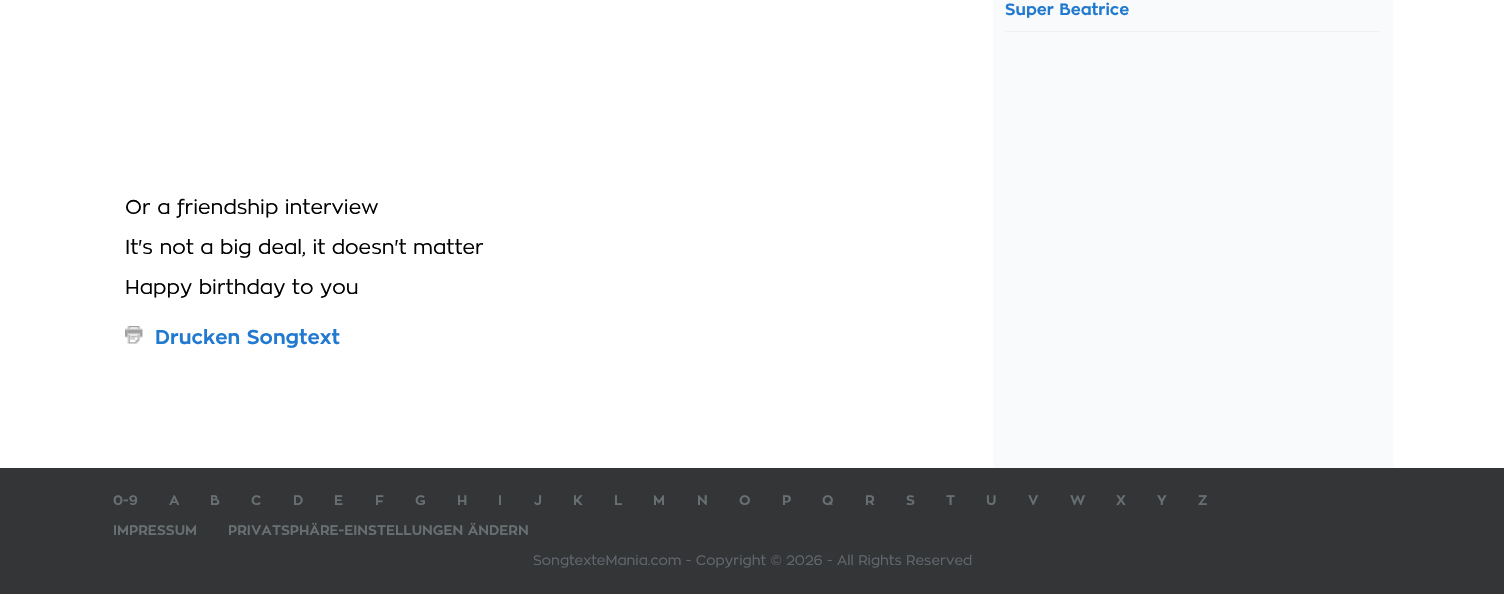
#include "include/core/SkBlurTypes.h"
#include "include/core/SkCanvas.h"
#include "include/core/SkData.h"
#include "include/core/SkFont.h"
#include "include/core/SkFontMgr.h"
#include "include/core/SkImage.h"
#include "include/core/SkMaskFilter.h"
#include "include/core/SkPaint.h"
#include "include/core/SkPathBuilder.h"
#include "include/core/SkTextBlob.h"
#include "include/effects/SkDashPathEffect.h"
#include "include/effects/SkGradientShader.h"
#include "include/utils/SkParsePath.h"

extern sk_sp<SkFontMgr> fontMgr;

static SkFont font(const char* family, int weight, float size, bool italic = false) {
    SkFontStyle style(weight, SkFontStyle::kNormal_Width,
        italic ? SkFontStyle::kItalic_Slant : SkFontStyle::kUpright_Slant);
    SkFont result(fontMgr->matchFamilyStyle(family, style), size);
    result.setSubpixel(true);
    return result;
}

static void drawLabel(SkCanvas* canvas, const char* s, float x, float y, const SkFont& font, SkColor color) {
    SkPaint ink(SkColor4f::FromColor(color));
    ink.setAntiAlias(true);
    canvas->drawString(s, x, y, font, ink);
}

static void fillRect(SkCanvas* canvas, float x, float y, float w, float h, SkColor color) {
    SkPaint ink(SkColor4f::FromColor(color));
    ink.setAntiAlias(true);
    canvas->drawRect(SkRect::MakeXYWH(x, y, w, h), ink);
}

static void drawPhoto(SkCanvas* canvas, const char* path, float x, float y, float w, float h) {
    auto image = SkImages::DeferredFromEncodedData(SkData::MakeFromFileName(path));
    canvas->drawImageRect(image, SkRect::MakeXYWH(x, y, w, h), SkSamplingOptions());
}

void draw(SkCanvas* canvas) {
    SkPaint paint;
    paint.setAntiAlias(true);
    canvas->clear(0xFFFFFFFF);
    fillRect(canvas, 993, 0, 400, 468, 0xFFF8FAFB);
    fillRect(canvas, 1005, 31, 375, 1, 0xFFF1F1F1);
    SkFont font1 = font("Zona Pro", 700, 16.25f);
    drawLabel(canvas, "Super Beatrice", 1005, 15, font1, 0xFF217ACF);
    SkFont font2 = font("Zona Pro", 400, 20);
    drawLabel(canvas, "Or a friendship interview", 125, 214, font2, 0xFF000000);
    drawLabel(canvas, "It's not a big deal, it doesn't matter", 125, 254, font2, 0xFF000000);
    drawLabel(canvas, "Happy birthday to you", 125, 294, font2, 0xFF000000);
    drawPhoto(canvas, "assets/img1.png", 125, 326, 18, 18);
    SkFont font3 = font("Zona Pro", 700, 20);
    drawLabel(canvas, "Drucken Songtext", 155, 344, font3, 0xFF217ACF);
    fillRect(canvas, 0, 468, 1504, 126, 0xFF343536);
    SkFont font4 = font("Zona Pro", 700, 13.75f);
    drawLabel(canvas, "0-9", 113, 505, font4, 0xFF686F72);
    drawLabel(canvas, "A", 169, 505, font4, 0xFF686F72);
    drawLabel(canvas, "B", 210, 505, font4, 0xFF686F72);
    drawLabel(canvas, "C", 251, 505, font4, 0xFF686F72);
    drawLabel(canvas, "D", 293, 505, font4, 0xFF686F72);
    drawLabel(canvas, "E", 334, 505, font4, 0xFF686F72);
    drawLabel(canvas, "F", 375, 505, font4, 0xFF686F72);
    drawLabel(canvas, "G", 415, 505, font4, 0xFF686F72);
    drawLabel(canvas, "H", 457, 505, font4, 0xFF686F72);
    drawLabel(canvas, "I", 498, 505, font4, 0xFF686F72);
    drawLabel(canvas, "J", 534, 505, font4, 0xFF686F72);
    drawLabel(canvas, "K", 573, 505, font4, 0xFF686F72);
    drawLabel(canvas, "L", 614, 505, font4, 0xFF686F72);
    drawLabel(canvas, "M", 653, 505, font4, 0xFF686F72);
    drawLabel(canvas, "N", 697, 505, font4, 0xFF686F72);
    drawLabel(canvas, "O", 739, 505, font4, 0xFF686F72);
    drawLabel(canvas, "P", 782, 505, font4, 0xFF686F72);
    drawLabel(canvas, "Q", 822, 505, font4, 0xFF686F72);
    drawLabel(canvas, "R", 865, 505, font4, 0xFF686F72);
    drawLabel(canvas, "S", 906, 505, font4, 0xFF686F72);
    drawLabel(canvas, "T", 946, 505, font4, 0xFF686F72);
    drawLabel(canvas, "U", 986, 505, font4, 0xFF686F72);
    drawLabel(canvas, "V", 1028, 505, font4, 0xFF686F72);
    drawLabel(canvas, "W", 1070, 505, font4, 0xFF686F72);
    drawLabel(canvas, "X", 1116, 505, font4, 0xFF686F72);
    drawLabel(canvas, "Y", 1157, 505, font4, 0xFF686F72);
    drawLabel(canvas, "Z", 1198, 505, font4, 0xFF686F72);
    drawLabel(canvas, "IMPRESSUM", 113, 535, font4, 0xFF686F72);
    drawLabel(canvas, "PRIVATSPHÄRE-EINSTELLUNGEN ÄNDERN", 228, 535, font4, 0xFF686F72);
    SkFont font5 = font("Zona Pro", 400, 13.75f);
    drawLabel(canvas, "SongtexteMania.com - Copyright © 2026 - All Rights Reserved", 533, 565, font5, 0xFF62686F);
}
